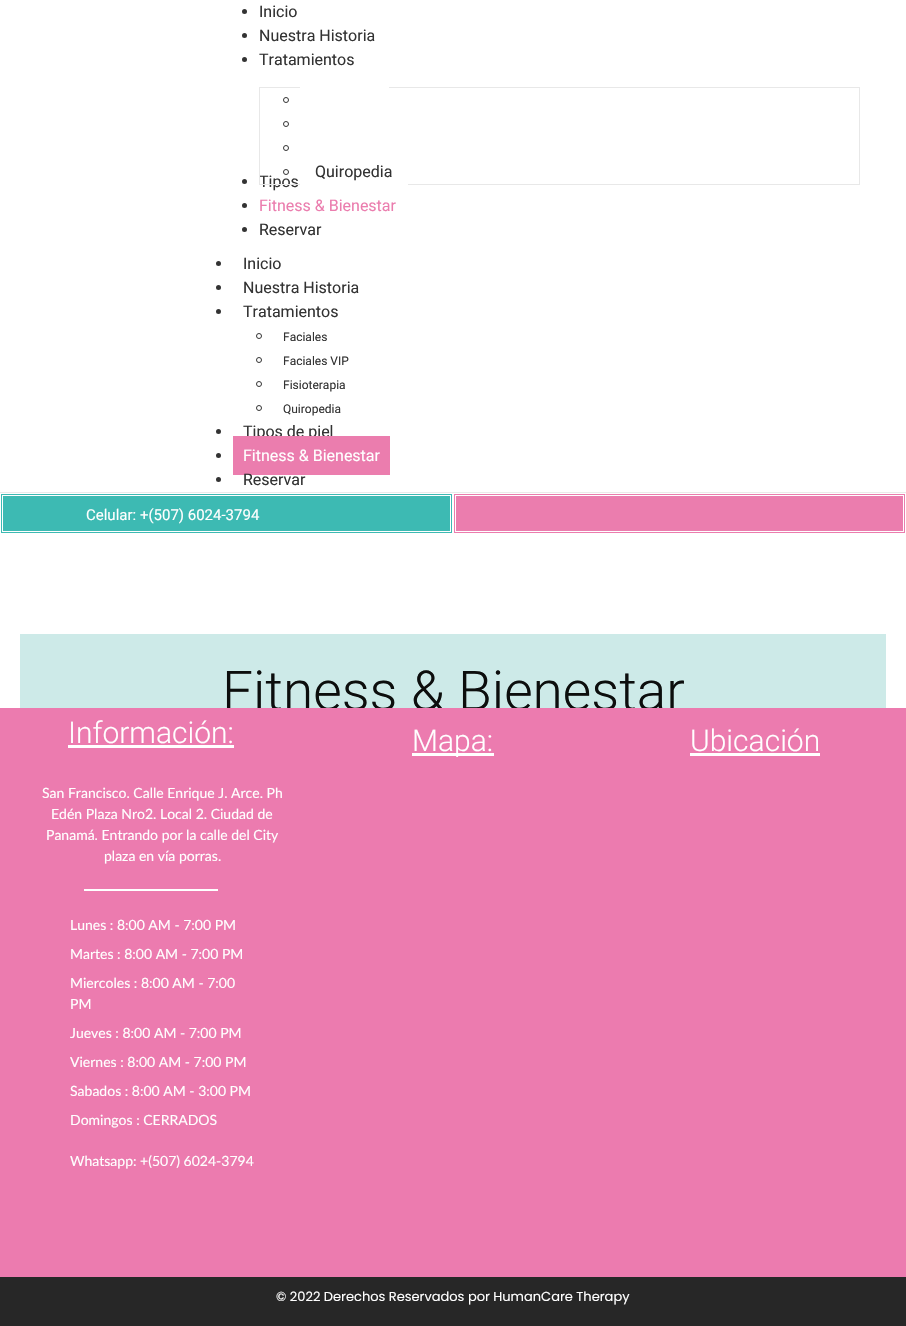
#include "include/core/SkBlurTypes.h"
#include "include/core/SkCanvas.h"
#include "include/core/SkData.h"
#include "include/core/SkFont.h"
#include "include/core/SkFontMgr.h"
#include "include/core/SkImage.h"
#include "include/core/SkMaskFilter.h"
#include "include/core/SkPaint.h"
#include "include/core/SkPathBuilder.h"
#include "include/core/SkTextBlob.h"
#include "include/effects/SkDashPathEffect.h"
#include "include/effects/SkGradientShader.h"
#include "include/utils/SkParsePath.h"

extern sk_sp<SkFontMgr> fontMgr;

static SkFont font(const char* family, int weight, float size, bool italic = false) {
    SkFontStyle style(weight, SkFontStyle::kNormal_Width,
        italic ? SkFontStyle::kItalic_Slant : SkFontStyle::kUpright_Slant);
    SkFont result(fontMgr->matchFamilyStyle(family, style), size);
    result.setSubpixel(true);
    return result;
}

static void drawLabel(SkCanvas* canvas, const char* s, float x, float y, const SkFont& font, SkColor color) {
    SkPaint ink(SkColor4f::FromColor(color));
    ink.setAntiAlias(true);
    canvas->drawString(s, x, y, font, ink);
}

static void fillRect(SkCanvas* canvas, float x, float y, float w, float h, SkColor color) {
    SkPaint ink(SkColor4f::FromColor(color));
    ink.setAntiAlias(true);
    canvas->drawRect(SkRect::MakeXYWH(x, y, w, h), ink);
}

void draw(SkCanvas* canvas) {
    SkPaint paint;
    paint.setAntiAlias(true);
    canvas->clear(0xFFFFFFFF);
    fillRect(canvas, 0, 492, 906, 1, 0xFFEAEAEA);
    paint.setColor(0xFF333333);
    canvas->drawCircle(244.5f, 11.5f, 2.5f, paint);
    SkFont font1 = font("Roboto", 400, 16);
    drawLabel(canvas, "Inicio", 259, 17, font1, 0xFF333333);
    canvas->drawCircle(244.5f, 35.5f, 2.5f, paint);
    drawLabel(canvas, "Nuestra Historia", 259, 41, font1, 0xFF333333);
    canvas->drawCircle(244.5f, 59.5f, 2.5f, paint);
    drawLabel(canvas, "Tratamientos", 259, 65, font1, 0xFF333333);
    drawLabel(canvas, "Tipos", 259, 187, font1, 0xFF333333);
    paint.setStroke(true);
    paint.setStrokeWidth(1);
    paint.setColor(0xFFE8E8E8);
    canvas->drawRect(SkRect::MakeXYWH(259.5f, 87.5f, 600, 97), paint);
    fillRect(canvas, 300, 87, 89, 1, 0xFFFFFFFF);
    paint.setColor(0xFF333333);
    canvas->drawCircle(286, 100, 2.5f, paint);
    canvas->drawCircle(286, 124, 2.5f, paint);
    canvas->drawCircle(286, 148, 2.5f, paint);
    canvas->drawCircle(286, 172, 2.5f, paint);
    drawLabel(canvas, "Quiropedia", 315, 177, font1, 0xFF333333);
    fillRect(canvas, 300, 184, 108, 1, 0xFFFFFFFF);
    paint.setStroke(false);
    canvas->drawCircle(244.5f, 181.5f, 2.5f, paint);
    canvas->drawCircle(244.5f, 205.5f, 2.5f, paint);
    drawLabel(canvas, "Fitness & Bienestar", 259, 211, font1, 0xFFEB7DAE);
    canvas->drawCircle(244.5f, 229.5f, 2.5f, paint);
    drawLabel(canvas, "Reservar", 259, 235, font1, 0xFF333333);
    canvas->drawCircle(218.5f, 263.5f, 2.5f, paint);
    drawLabel(canvas, "Inicio", 243, 269, font1, 0xFF333333);
    canvas->drawCircle(218.5f, 287.5f, 2.5f, paint);
    drawLabel(canvas, "Nuestra Historia", 243, 293, font1, 0xFF333333);
    canvas->drawCircle(218.5f, 311.5f, 2.5f, paint);
    drawLabel(canvas, "Tratamientos", 243, 317, font1, 0xFF333333);
    paint.setStroke(true);
    canvas->drawCircle(259, 336, 2.5f, paint);
    SkFont font2 = font("Roboto", 400, 12);
    drawLabel(canvas, "Faciales", 283, 341, font2, 0xFF333333);
    canvas->drawCircle(259, 360, 2.5f, paint);
    drawLabel(canvas, "Faciales VIP", 283, 365, font2, 0xFF333333);
    canvas->drawCircle(259, 384, 2.5f, paint);
    drawLabel(canvas, "Fisioterapia", 283, 389, font2, 0xFF333333);
    canvas->drawCircle(259, 408, 2.5f, paint);
    drawLabel(canvas, "Quiropedia", 283, 413, font2, 0xFF333333);
    paint.setStroke(false);
    canvas->drawCircle(218.5f, 431.5f, 2.5f, paint);
    drawLabel(canvas, "Tipos de piel", 243, 437, font1, 0xFF333333);
    canvas->drawCircle(218.5f, 455.5f, 2.5f, paint);
    fillRect(canvas, 233, 436, 157, 39, 0xFFEB7DAE);
    drawLabel(canvas, "Fitness & Bienestar", 243, 461, font1, 0xFFFFFFFF);
    canvas->drawCircle(218.5f, 479.5f, 2.5f, paint);
    drawLabel(canvas, "Reservar", 243, 485, font1, 0xFF333333);
    fillRect(canvas, 1, 494, 451, 39, 0xFF3DBAB3);
    paint.setStroke(true);
    paint.setColor(0xFFFFFFFF);
    canvas->drawRect(SkRect::MakeXYWH(2.5f, 495.5f, 448, 36), paint);
    SkFont font3 = font("Roboto", 400, 15);
    drawLabel(canvas, "Celular: +(507) 6024-3794", 86, 520, font3, 0xFFFFFFFF);
    fillRect(canvas, 454, 494, 451, 39, 0xFFEB7DAE);
    canvas->drawRect(SkRect::MakeXYWH(455.5f, 495.5f, 448, 36), paint);
    fillRect(canvas, 20, 634, 866, 74, 0xFFCDEAE8);
    SkFont font4 = font("Roboto", 300, 55);
    drawLabel(canvas, "Fitness & Bienestar", 222, 710, font4, 0xFF0C0E0D);
    fillRect(canvas, 0, 708, 906, 569, 0xFFEC7BAF);
    SkFont font5 = font("Roboto", 300, 30);
    drawLabel(canvas, "Información:", 68, 743, font5, 0xFFFFFFFF);
    fillRect(canvas, 68, 745, 166, 3, 0xFFFFFFFF);
    SkFont font6 = font("Lato", 400, 14);
    drawLabel(canvas, "San Francisco. Calle Enrique J. Arce. Ph", 42, 798, font6, 0xFFFFFFFF);
    drawLabel(canvas, "Edén Plaza Nro2. Local 2. Ciudad de", 51, 819, font6, 0xFFFFFFFF);
    drawLabel(canvas, "Panamá. Entrando por la calle del City", 46, 840, font6, 0xFFFFFFFF);
    drawLabel(canvas, "plaza en vía porras.", 104, 861, font6, 0xFFFFFFFF);
    fillRect(canvas, 84, 889, 134, 2, 0xFFFFFFFF);
    drawLabel(canvas, "Lunes : 8:00 AM - 7:00 PM", 70, 930, font6, 0xFFFFFFFF);
    drawLabel(canvas, "Martes : 8:00 AM - 7:00 PM", 70, 959, font6, 0xFFFFFFFF);
    drawLabel(canvas, "Miercoles : 8:00 AM - 7:00", 70, 988, font6, 0xFFFFFFFF);
    drawLabel(canvas, "PM", 70, 1009, font6, 0xFFFFFFFF);
    drawLabel(canvas, "Jueves : 8:00 AM - 7:00 PM", 70, 1038, font6, 0xFFFFFFFF);
    drawLabel(canvas, "Viernes : 8:00 AM - 7:00 PM", 70, 1067, font6, 0xFFFFFFFF);
    drawLabel(canvas, "Sabados : 8:00 AM - 3:00 PM", 70, 1096, font6, 0xFFFFFFFF);
    drawLabel(canvas, "Domingos : CERRADOS", 70, 1125, font6, 0xFFFFFFFF);
    drawLabel(canvas, "Whatsapp: +(507) 6024-3794", 70, 1166, font6, 0xFFFFFFFF);
    fillRect(canvas, 412, 753, 82, 3, 0xFFFFFFFF);
    drawLabel(canvas, "Mapa:", 412, 751, font5, 0xFFFFFFFF);
    drawLabel(canvas, "Ubicación", 690, 751, font5, 0xFFFFFFFF);
    fillRect(canvas, 690, 753, 130, 3, 0xFFFFFFFF);
    fillRect(canvas, 0, 1277, 906, 49, 0xFF272727);
    SkFont font7 = font("Poppins", 400, 13);
    drawLabel(canvas, "© 2022 Derechos Reservados por HumanCare Therapy", 276, 1301, font7, 0xFFFFFFFF);
}
